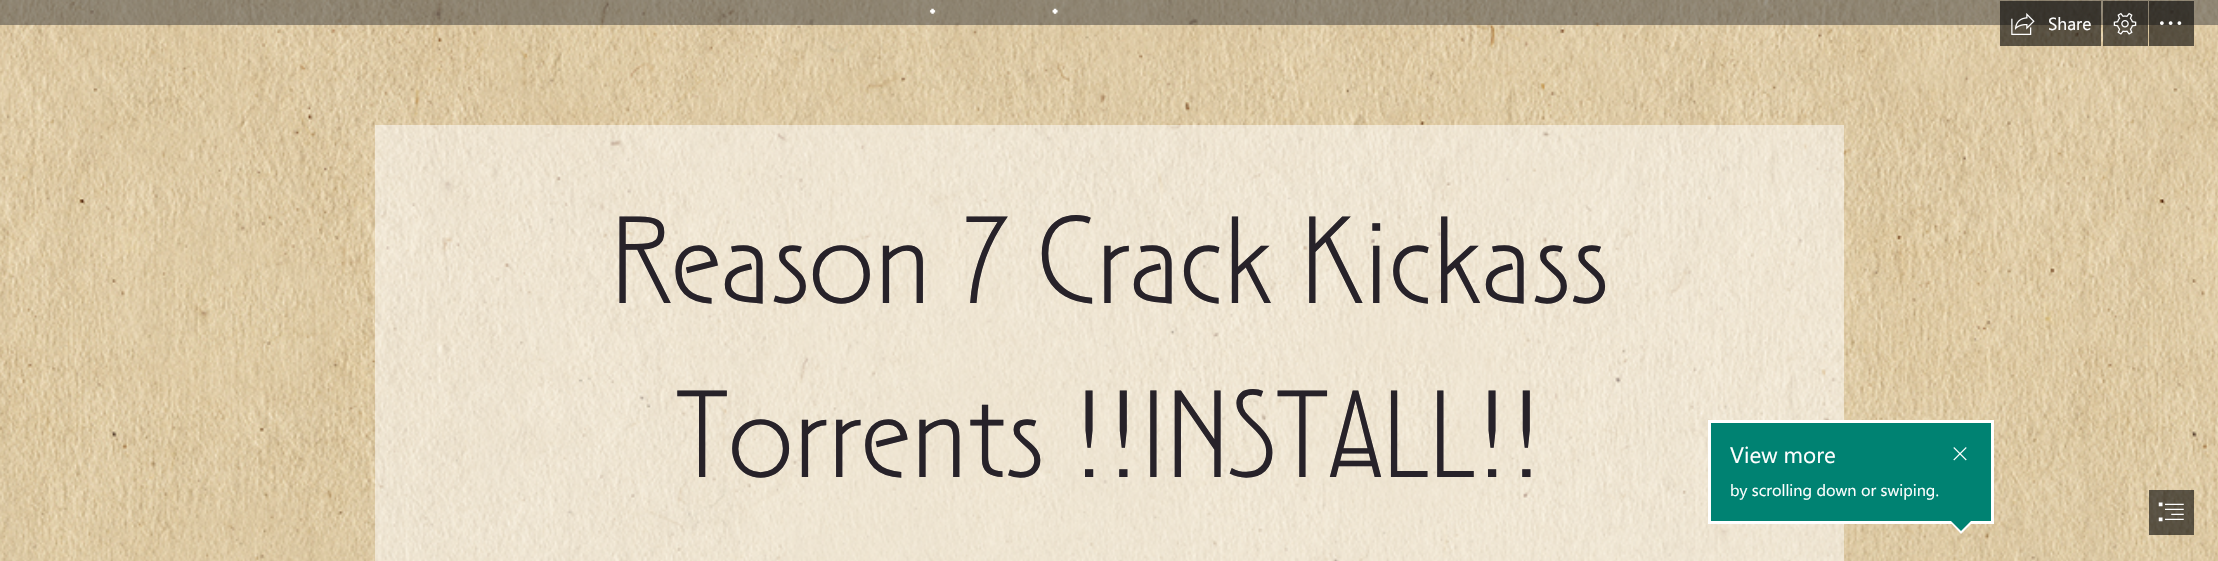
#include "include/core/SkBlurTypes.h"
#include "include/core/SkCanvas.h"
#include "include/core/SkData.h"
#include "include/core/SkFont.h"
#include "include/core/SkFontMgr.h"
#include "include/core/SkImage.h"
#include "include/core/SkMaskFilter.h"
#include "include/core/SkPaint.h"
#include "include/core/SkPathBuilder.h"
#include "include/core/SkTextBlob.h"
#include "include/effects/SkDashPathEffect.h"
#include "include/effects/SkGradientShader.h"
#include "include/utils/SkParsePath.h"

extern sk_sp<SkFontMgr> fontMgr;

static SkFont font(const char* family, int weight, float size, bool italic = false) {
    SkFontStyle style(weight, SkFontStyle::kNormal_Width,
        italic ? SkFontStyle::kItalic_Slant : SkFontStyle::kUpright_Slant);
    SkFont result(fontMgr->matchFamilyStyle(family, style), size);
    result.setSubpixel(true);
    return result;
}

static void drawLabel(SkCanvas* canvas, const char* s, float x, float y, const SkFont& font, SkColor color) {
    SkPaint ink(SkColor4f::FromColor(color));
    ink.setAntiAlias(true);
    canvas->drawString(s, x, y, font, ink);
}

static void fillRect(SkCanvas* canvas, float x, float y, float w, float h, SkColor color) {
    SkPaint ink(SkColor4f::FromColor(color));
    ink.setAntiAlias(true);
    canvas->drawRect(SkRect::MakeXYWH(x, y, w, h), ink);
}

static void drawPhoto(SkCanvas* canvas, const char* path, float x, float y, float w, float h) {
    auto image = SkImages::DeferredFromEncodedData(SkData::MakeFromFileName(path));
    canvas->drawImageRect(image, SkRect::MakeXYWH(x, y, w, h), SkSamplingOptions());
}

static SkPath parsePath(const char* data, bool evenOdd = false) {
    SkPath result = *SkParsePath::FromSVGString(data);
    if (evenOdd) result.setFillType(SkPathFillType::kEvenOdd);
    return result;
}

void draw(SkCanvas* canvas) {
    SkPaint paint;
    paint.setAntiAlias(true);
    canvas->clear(0xFFFFFFFF);
    drawPhoto(canvas, "assets/img5.png", 0, 0, 2218, 561);
    fillRect(canvas, 0, 0, 2218, 25, 0x80404040);
    fillRect(canvas, 2000, 1, 101, 45, 0x99000000);
    drawPhoto(canvas, "assets/img1.png", 2011, 13, 24, 22);
    SkFont font1 = font("Segoe UI", 400, 17.5f);
    drawLabel(canvas, "Share", 2048, 30, font1, 0xFFFFFFFF);
    fillRect(canvas, 2103, 1, 45, 45, 0x99000000);
    drawPhoto(canvas, "assets/img2.png", 2113, 12, 24, 23);
    fillRect(canvas, 2149, 1, 45, 45, 0x99000000);
    drawPhoto(canvas, "assets/img3.png", 2160, 21, 22, 4);
    drawPhoto(canvas, "assets/img4.png", 929, 8, 129, 6);
    fillRect(canvas, 375, 125, 1469, 436, 0x80FFFFFF);
    SkFont font2 = font("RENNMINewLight", 300, 130);
    drawLabel(canvas, "Reason 7 Crack Kickass", 611, 303, font2, 0xFF272229);
    drawLabel(canvas, "Torrents !!INSTALL!!", 676, 477, font2, 0xFF272229);
    paint.setColor(0xFF008272);
    canvas->drawRect(SkRect::MakeXYWH(1709.5f, 421.5f, 283, 101), paint);
    paint.setStroke(true);
    paint.setStrokeWidth(3);
    paint.setColor(0xFFFFFFFF);
    canvas->drawRect(SkRect::MakeXYWH(1709.5f, 421.5f, 283, 101), paint);
    SkFont font3 = font("Segoe UI", 400, 22.5f);
    drawLabel(canvas, "View more", 1730, 463, font3, 0xFFFFFFFF);
    SkFont font4 = font("Segoe UI", 400, 16.25f);
    drawLabel(canvas, "by scrolling down or swiping.", 1730, 496, font4, 0xFFFFFFFF);
    drawPhoto(canvas, "assets/img6.png", 1953, 447, 14, 14);
    paint.setStroke(false);
    canvas->drawPath(parsePath("M1949 521H1974L1961 534Z"), paint);
    paint.setColor(0xFF008272);
    canvas->drawPath(parsePath("M1951 521H1971L1961 531Z"), paint);
    fillRect(canvas, 2149, 490, 45, 45, 0x99000000);
    drawPhoto(canvas, "assets/img7.png", 2158, 502, 26, 20);
}
